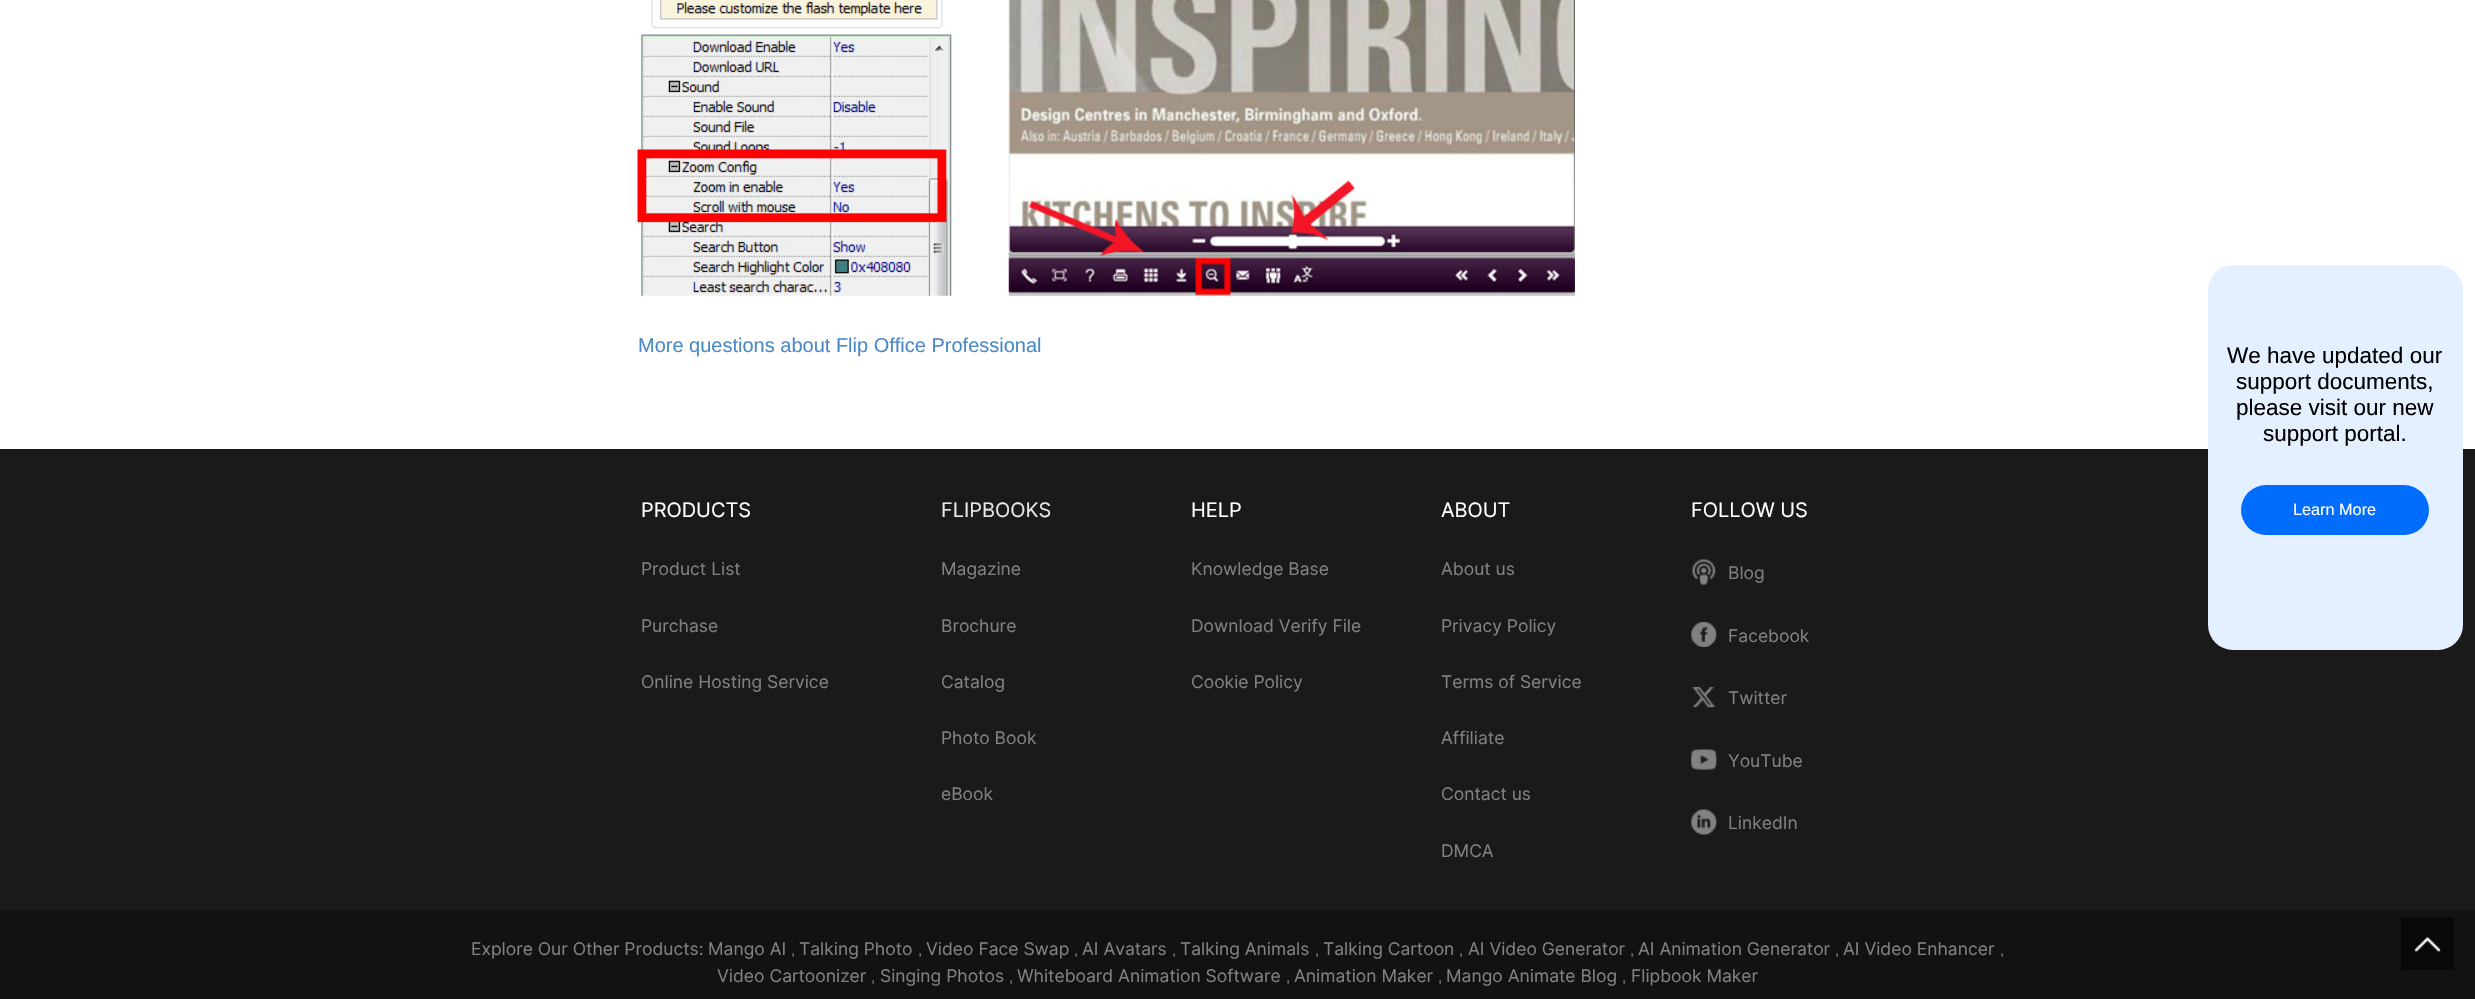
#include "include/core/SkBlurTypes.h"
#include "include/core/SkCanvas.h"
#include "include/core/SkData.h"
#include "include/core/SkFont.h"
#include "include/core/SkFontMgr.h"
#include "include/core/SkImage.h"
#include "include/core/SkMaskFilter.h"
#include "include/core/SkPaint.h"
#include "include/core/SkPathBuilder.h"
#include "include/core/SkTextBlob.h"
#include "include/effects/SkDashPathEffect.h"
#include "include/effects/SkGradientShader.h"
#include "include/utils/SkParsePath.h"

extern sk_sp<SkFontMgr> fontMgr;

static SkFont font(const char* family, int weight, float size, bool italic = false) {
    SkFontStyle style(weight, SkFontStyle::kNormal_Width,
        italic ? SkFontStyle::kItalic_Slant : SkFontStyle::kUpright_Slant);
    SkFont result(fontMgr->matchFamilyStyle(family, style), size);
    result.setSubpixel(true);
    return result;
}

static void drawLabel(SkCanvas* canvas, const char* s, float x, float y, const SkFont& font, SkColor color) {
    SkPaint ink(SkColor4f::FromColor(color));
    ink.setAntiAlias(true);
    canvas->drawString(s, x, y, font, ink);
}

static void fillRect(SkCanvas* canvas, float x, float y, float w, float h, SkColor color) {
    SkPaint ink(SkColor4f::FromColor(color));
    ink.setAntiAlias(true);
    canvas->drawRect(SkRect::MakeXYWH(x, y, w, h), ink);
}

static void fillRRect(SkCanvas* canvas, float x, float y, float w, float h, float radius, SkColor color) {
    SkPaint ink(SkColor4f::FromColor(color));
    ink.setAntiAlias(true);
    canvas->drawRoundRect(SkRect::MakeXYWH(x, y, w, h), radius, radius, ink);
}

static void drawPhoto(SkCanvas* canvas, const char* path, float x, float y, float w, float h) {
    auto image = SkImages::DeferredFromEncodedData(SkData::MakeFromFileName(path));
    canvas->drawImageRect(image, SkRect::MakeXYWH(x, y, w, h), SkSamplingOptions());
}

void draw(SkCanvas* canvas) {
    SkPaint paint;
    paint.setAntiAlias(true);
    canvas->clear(0xFFFFFFFF);
    drawPhoto(canvas, "assets/img1.png", 637, 0, 938, 296);
    SkFont font1 = font("Liberation Sans", 400, 20);
    drawLabel(canvas, "More questions about Flip Office Professional", 638, 352, font1, 0xFF4A89C7);
    fillRect(canvas, 0, 449, 2475, 461, 0xFF1A1A1A);
    fillRRect(canvas, 2208, 265, 255, 385, 25, 0xFFE4EFFF);
    SkFont font2 = font("Liberation Sans", 400, 22.5f);
    drawLabel(canvas, "We have updated our", 2227, 363, font2, 0xFF000000);
    drawLabel(canvas, "support documents,", 2236, 389, font2, 0xFF000000);
    drawLabel(canvas, "please visit our new", 2236, 415, font2, 0xFF000000);
    drawLabel(canvas, "support portal.", 2263, 441, font2, 0xFF000000);
    fillRRect(canvas, 2241, 485, 188, 50, 25, 0xFF006DFF);
    SkFont font3 = font("Liberation Sans", 400, 16.25f);
    drawLabel(canvas, "Learn More", 2293, 515, font3, 0xFFFFFFFF);
    SkFont font4 = font("Inter", 400, 20);
    drawLabel(canvas, "PRODUCTS", 641, 517, font4, 0xFFFFFFFF);
    SkFont font5 = font("Inter", 400, 17.5f);
    drawLabel(canvas, "Product List", 641, 575, font5, 0xFF818181);
    drawLabel(canvas, "Purchase", 641, 632, font5, 0xFF818181);
    drawLabel(canvas, "Online Hosting Service", 641, 688, font5, 0xFF818181);
    drawLabel(canvas, "FLIPBOOKS", 941, 517, font4, 0xFFE5E6E9);
    drawLabel(canvas, "Magazine", 941, 575, font5, 0xFF818181);
    drawLabel(canvas, "Brochure", 941, 632, font5, 0xFF818181);
    drawLabel(canvas, "Catalog", 941, 688, font5, 0xFF818181);
    drawLabel(canvas, "Photo Book", 941, 744, font5, 0xFF818181);
    drawLabel(canvas, "eBook", 941, 800, font5, 0xFF818181);
    drawLabel(canvas, "HELP", 1191, 517, font4, 0xFFFFFFFF);
    drawLabel(canvas, "Knowledge Base", 1191, 575, font5, 0xFF818181);
    drawLabel(canvas, "Download Verify File", 1191, 632, font5, 0xFF818181);
    drawLabel(canvas, "Cookie Policy", 1191, 688, font5, 0xFF818181);
    drawLabel(canvas, "ABOUT", 1441, 517, font4, 0xFFFFFFFF);
    drawLabel(canvas, "About us", 1441, 575, font5, 0xFF818181);
    drawLabel(canvas, "Privacy Policy", 1441, 632, font5, 0xFF818181);
    drawLabel(canvas, "Terms of Service", 1441, 688, font5, 0xFF818181);
    drawLabel(canvas, "Affiliate", 1441, 744, font5, 0xFF818181);
    drawLabel(canvas, "Contact us", 1441, 800, font5, 0xFF818181);
    drawLabel(canvas, "DMCA", 1441, 857, font5, 0xFF818181);
    drawLabel(canvas, "FOLLOW US", 1691, 517, font4, 0xFFFFFFFF);
    drawPhoto(canvas, "assets/img2.png", 1692, 559, 24, 26);
    drawLabel(canvas, "Blog", 1728, 579, font5, 0xFF818181);
    drawPhoto(canvas, "assets/img3.png", 1691, 622, 26, 25);
    drawLabel(canvas, "Facebook", 1728, 642, font5, 0xFF818181);
    drawPhoto(canvas, "assets/img4.png", 1692, 686, 24, 22);
    drawLabel(canvas, "Twitter", 1728, 704, font5, 0xFF818181);
    drawPhoto(canvas, "assets/img5.png", 1691, 749, 26, 21);
    drawLabel(canvas, "YouTube", 1728, 767, font5, 0xFF818181);
    drawPhoto(canvas, "assets/img6.png", 1691, 809, 26, 26);
    drawLabel(canvas, "LinkedIn", 1728, 829, font5, 0xFF818181);
    fillRect(canvas, 0, 910, 2475, 89, 0xFF121212);
    drawLabel(canvas, "Explore Our Other Products:", 471, 955, font5, 0xFF818181);
    drawLabel(canvas, "Mango AI", 708, 955, font5, 0xFF818181);
    SkFont font6 = font("Liberation Sans", 400, 15);
    drawLabel(canvas, ",", 791, 955, font6, 0xFF818181);
    drawLabel(canvas, "Talking Photo", 799, 955, font5, 0xFF818181);
    drawLabel(canvas, ",", 918, 955, font6, 0xFF818181);
    drawLabel(canvas, "Video Face Swap", 926, 955, font5, 0xFF818181);
    drawLabel(canvas, ",", 1074, 955, font6, 0xFF818181);
    drawLabel(canvas, "AI Avatars", 1082, 955, font5, 0xFF818181);
    drawLabel(canvas, ",", 1172, 955, font6, 0xFF818181);
    drawLabel(canvas, "Talking Animals", 1180, 955, font5, 0xFF818181);
    drawLabel(canvas, ",", 1315, 955, font6, 0xFF818181);
    drawLabel(canvas, "Talking Cartoon", 1323, 955, font5, 0xFF818181);
    drawLabel(canvas, ",", 1459, 955, font6, 0xFF818181);
    drawLabel(canvas, "AI Video Generator", 1468, 955, font5, 0xFF818181);
    drawLabel(canvas, ",", 1630, 955, font6, 0xFF818181);
    drawLabel(canvas, "AI Animation Generator", 1638, 955, font5, 0xFF818181);
    drawLabel(canvas, ",", 1835, 955, font6, 0xFF818181);
    drawLabel(canvas, "AI Video Enhancer", 1843, 955, font5, 0xFF818181);
    drawLabel(canvas, ",", 2000, 955, font6, 0xFF818181);
    drawLabel(canvas, "Video Cartoonizer", 717, 982, font5, 0xFF818181);
    drawLabel(canvas, ",", 871, 982, font6, 0xFF818181);
    drawLabel(canvas, "Singing Photos", 880, 982, font5, 0xFF818181);
    drawLabel(canvas, ",", 1009, 982, font6, 0xFF818181);
    drawLabel(canvas, "Whiteboard Animation Software", 1017, 982, font5, 0xFF818181);
    drawLabel(canvas, ",", 1286, 982, font6, 0xFF818181);
    drawLabel(canvas, "Animation Maker", 1294, 982, font5, 0xFF818181);
    drawLabel(canvas, ",", 1438, 982, font6, 0xFF818181);
    drawLabel(canvas, "Mango Animate Blog", 1446, 982, font5, 0xFF818181);
    drawLabel(canvas, ",", 1622, 982, font6, 0xFF818181);
    drawLabel(canvas, "Flipbook Maker", 1631, 982, font5, 0xFF818181);
    drawPhoto(canvas, "assets/img7.png", 2401, 917, 53, 53);
}
